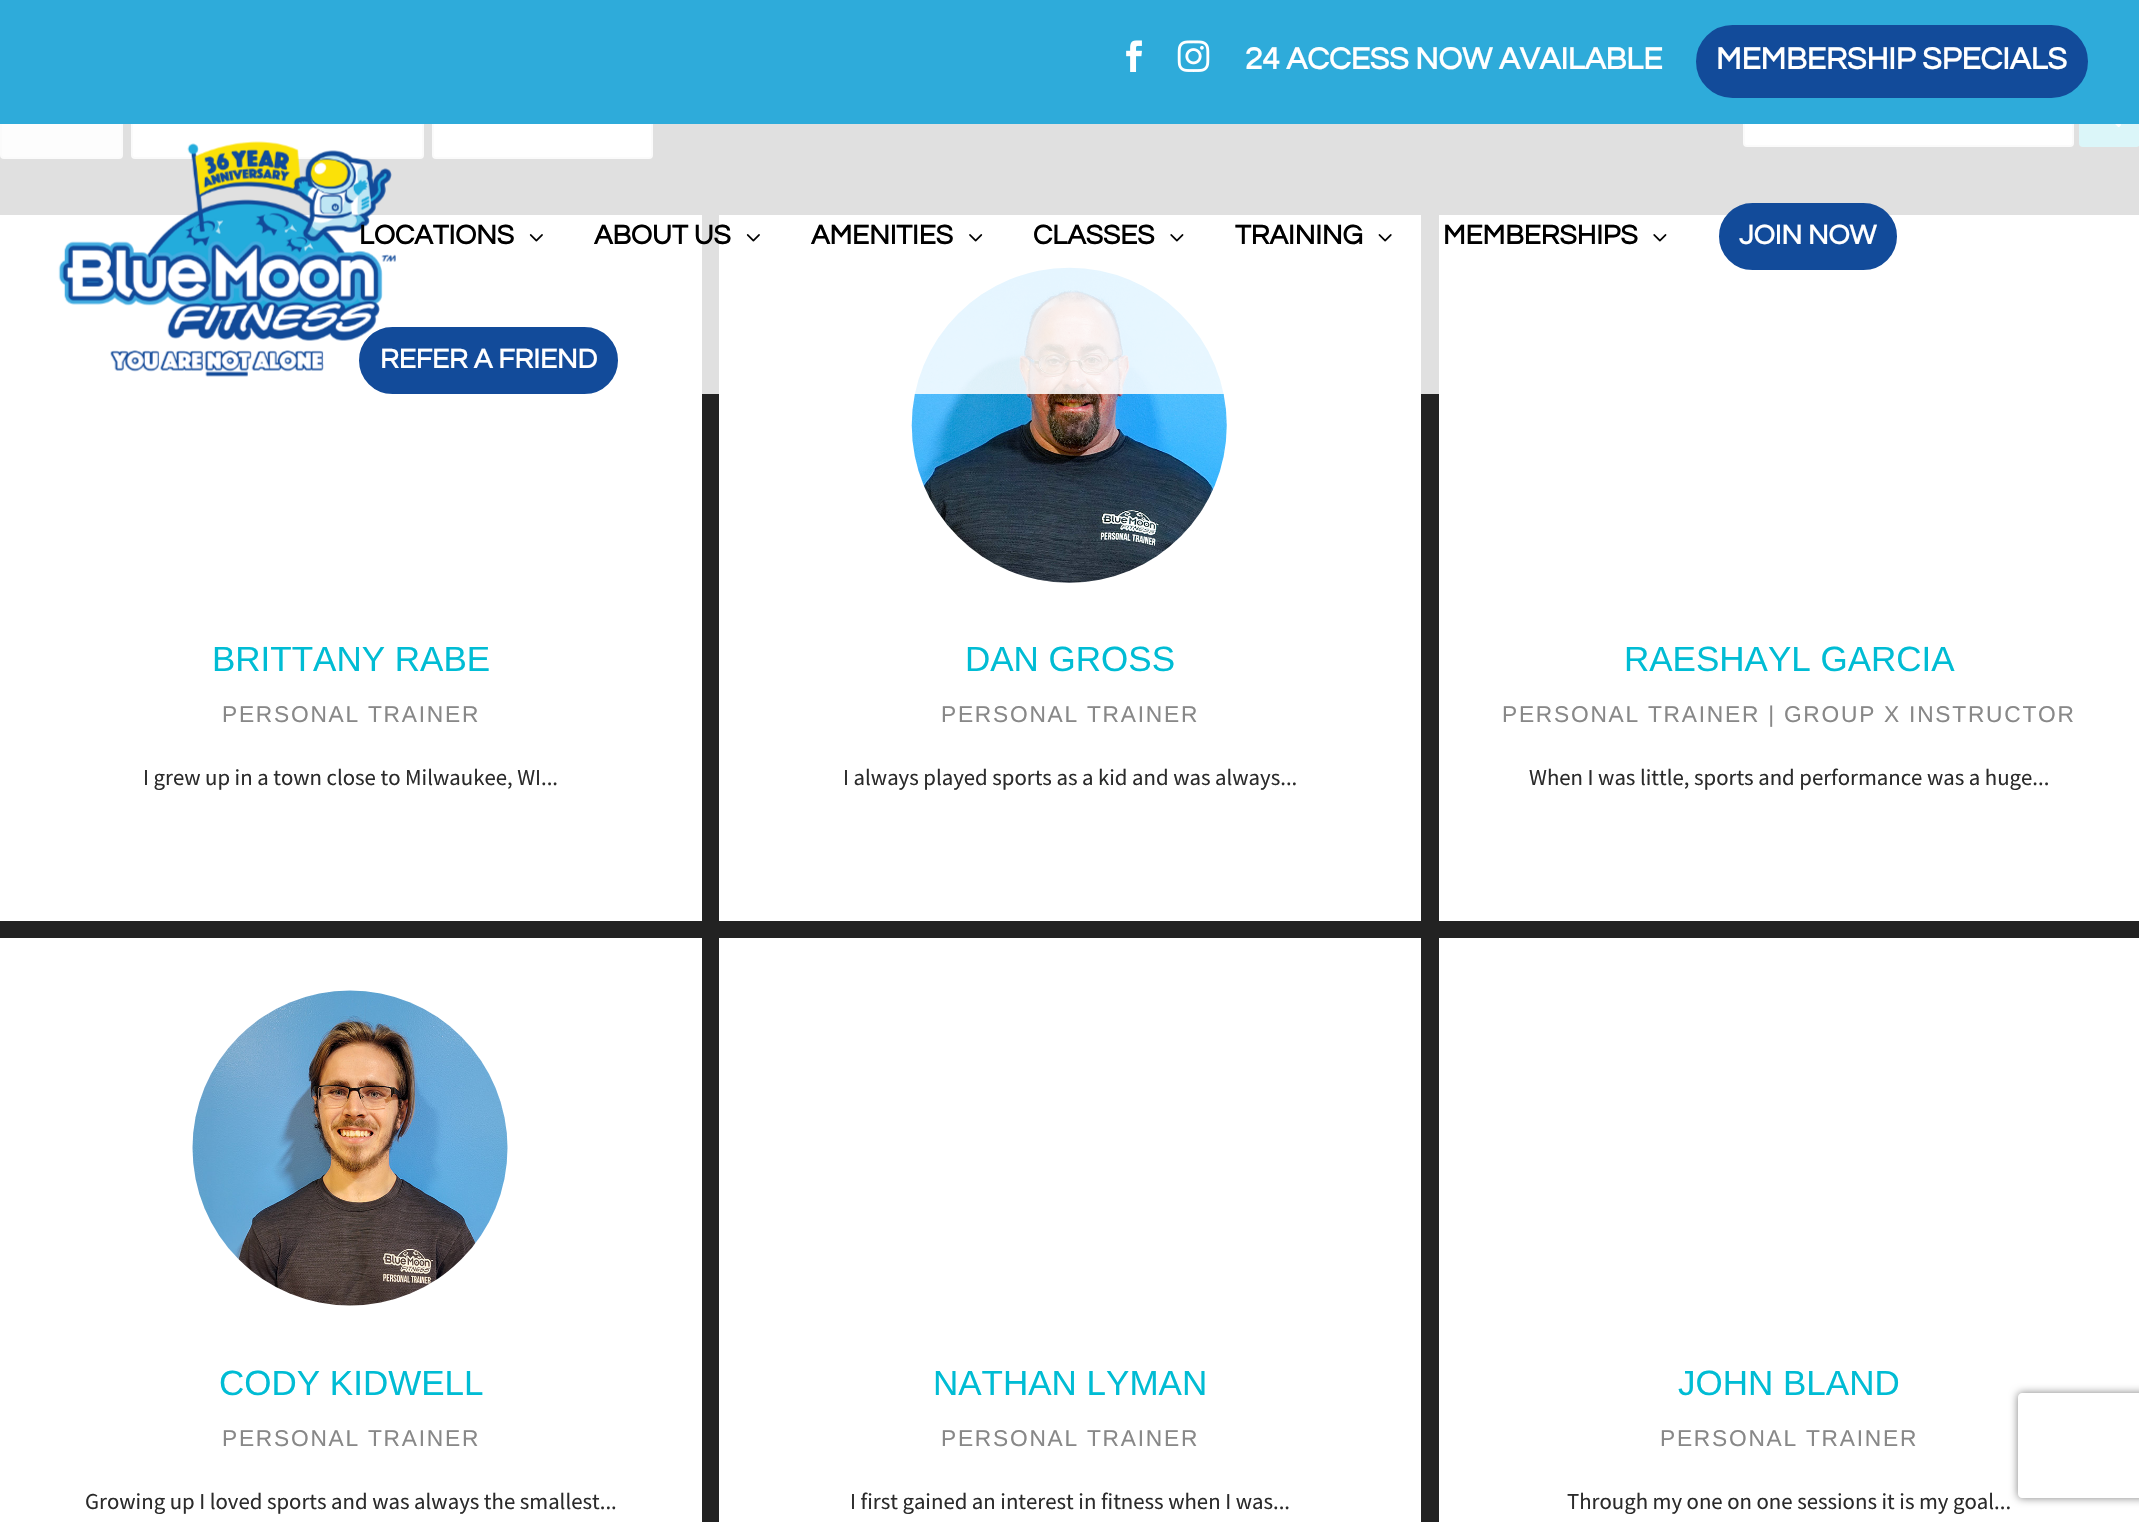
#include "include/core/SkBlurTypes.h"
#include "include/core/SkCanvas.h"
#include "include/core/SkData.h"
#include "include/core/SkFont.h"
#include "include/core/SkFontMgr.h"
#include "include/core/SkImage.h"
#include "include/core/SkMaskFilter.h"
#include "include/core/SkPaint.h"
#include "include/core/SkPathBuilder.h"
#include "include/core/SkTextBlob.h"
#include "include/effects/SkDashPathEffect.h"
#include "include/effects/SkGradientShader.h"
#include "include/utils/SkParsePath.h"

extern sk_sp<SkFontMgr> fontMgr;

static SkFont font(const char* family, int weight, float size, bool italic = false) {
    SkFontStyle style(weight, SkFontStyle::kNormal_Width,
        italic ? SkFontStyle::kItalic_Slant : SkFontStyle::kUpright_Slant);
    SkFont result(fontMgr->matchFamilyStyle(family, style), size);
    result.setSubpixel(true);
    return result;
}

static void drawLabel(SkCanvas* canvas, const char* s, float x, float y, const SkFont& font, SkColor color) {
    SkPaint ink(SkColor4f::FromColor(color));
    ink.setAntiAlias(true);
    canvas->drawString(s, x, y, font, ink);
}

static void drawTracked(SkCanvas* canvas, const char* s, float x, float y, const SkFont& font, const SkPaint& ink, float letter, float word) {
    std::vector<SkGlyphID> glyphs(font.countText(s, strlen(s), SkTextEncoding::kUTF8));
    std::vector<float> xs(glyphs.size());
    font.textToGlyphs(s, strlen(s), SkTextEncoding::kUTF8, glyphs);
    font.getXPos(glyphs, xs, x);
    float extra = 0;
    for (size_t i = 0; i < glyphs.size(); i++) {
        xs[i] += extra;
        extra += letter + word * (glyphs[i] == font.unicharToGlyph(' '));
    }
    canvas->drawTextBlob(SkTextBlob::MakeFromPosHGlyphs(glyphs, xs, y, font), 0, 0, ink);
}

static void fillRect(SkCanvas* canvas, float x, float y, float w, float h, SkColor color) {
    SkPaint ink(SkColor4f::FromColor(color));
    ink.setAntiAlias(true);
    canvas->drawRect(SkRect::MakeXYWH(x, y, w, h), ink);
}

static void drawPhoto(SkCanvas* canvas, const char* path, float x, float y, float w, float h) {
    auto image = SkImages::DeferredFromEncodedData(SkData::MakeFromFileName(path));
    canvas->drawImageRect(image, SkRect::MakeXYWH(x, y, w, h), SkSamplingOptions());
}

static SkPath parsePath(const char* data, bool evenOdd = false) {
    SkPath result = *SkParsePath::FromSVGString(data);
    if (evenOdd) result.setFillType(SkPathFillType::kEvenOdd);
    return result;
}

void draw(SkCanvas* canvas) {
    SkPaint paint;
    paint.setAntiAlias(true);
    canvas->clear(0xFF222222);
    paint.setColor(0xFFEEEEEE);
    canvas->drawRoundRect(SkRect::MakeXYWH(1, 87, 121, 71), 3, 3, paint);
    paint.setStroke(true);
    paint.setStrokeWidth(2);
    paint.setColor(0xFFDDDDDD);
    canvas->drawRoundRect(SkRect::MakeXYWH(1, 87, 121, 71), 3, 3, paint);
    paint.setStroke(false);
    paint.setColor(0xFFFFFFFF);
    canvas->drawRoundRect(SkRect::MakeXYWH(132, 87, 291, 71), 3, 3, paint);
    paint.setStroke(true);
    paint.setColor(0xFFDDDDDD);
    canvas->drawRoundRect(SkRect::MakeXYWH(132, 87, 291, 71), 3, 3, paint);
    paint.setStroke(false);
    paint.setColor(0xFFFFFFFF);
    canvas->drawRoundRect(SkRect::MakeXYWH(433, 87, 219, 71), 3, 3, paint);
    paint.setStroke(true);
    paint.setColor(0xFFDDDDDD);
    canvas->drawRoundRect(SkRect::MakeXYWH(433, 87, 219, 71), 3, 3, paint);
    paint.setStroke(false);
    paint.setColor(0xFFFFFFFF);
    canvas->drawRoundRect(SkRect::MakeXYWH(1744, 87, 329, 59), 3, 3, paint);
    paint.setStroke(true);
    paint.setColor(0xFFDDDDDD);
    canvas->drawRoundRect(SkRect::MakeXYWH(1744, 87, 329, 59), 3, 3, paint);
    paint.setStroke(false);
    paint.setColor(0xFF00BCD4);
    canvas->drawRoundRect(SkRect::MakeXYWH(2080, 87, 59, 59), 3, 3, paint);
    paint.setStroke(true);
    canvas->drawRoundRect(SkRect::MakeXYWH(2080, 87, 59, 59), 3, 3, paint);
    fillRect(canvas, 0, 0, 2139, 124, 0xFF2EABDA);
    drawPhoto(canvas, "assets/img1.png", 1126, 40, 16, 32);
    drawPhoto(canvas, "assets/img2.png", 1177, 40, 33, 32);
    SkFont font1 = font("Questrial", 700, 31.5f);
    drawLabel(canvas, "24 ACCESS NOW AVAILABLE", 1245, 69, font1, 0xFFFFFFFF);
    paint.setStroke(false);
    paint.setColor(0xFF124B9A);
    canvas->drawRoundRect(SkRect::MakeXYWH(1698, 27, 388, 69), 34.5f, 34.5f, paint);
    paint.setStroke(true);
    paint.setStrokeWidth(4);
    canvas->drawRoundRect(SkRect::MakeXYWH(1698, 27, 388, 69), 34.5f, 34.5f, paint);
    drawLabel(canvas, "MEMBERSHIP SPECIALS", 1716, 69, font1, 0xFFFFFFFF);
    drawPhoto(canvas, "assets/img8.png", 2115, 124, 6, 4);
    fillRect(canvas, 0, 215, 702, 706, 0xFFFFFFFF);
    fillRect(canvas, 719, 215, 702, 706, 0xFFFFFFFF);
    drawPhoto(canvas, "assets/img9.png", 911, 267, 316, 316);
    fillRect(canvas, 1439, 215, 700, 706, 0xFFFFFFFF);
    fillRect(canvas, 0, 124, 2139, 270, 0xDBFFFFFF);
    drawPhoto(canvas, "assets/img3.png", 58, 141, 338, 236);
    SkFont font2 = font("Questrial", 700, 28);
    drawLabel(canvas, "LOCATIONS", 359, 244, font2, 0xFF000000);
    drawPhoto(canvas, "assets/img4.png", 529, 234, 14, 8);
    drawLabel(canvas, "ABOUT US", 594, 244, font2, 0xFF000000);
    drawPhoto(canvas, "assets/img4.png", 746, 234, 14, 8);
    drawLabel(canvas, "AMENITIES", 811, 244, font2, 0xFF000000);
    drawPhoto(canvas, "assets/img5.png", 969, 234, 14, 8);
    drawLabel(canvas, "CLASSES", 1033, 244, font2, 0xFF000000);
    drawPhoto(canvas, "assets/img6.png", 1170, 234, 14, 8);
    drawLabel(canvas, "TRAINING", 1235, 244, font2, 0xFF000000);
    drawPhoto(canvas, "assets/img7.png", 1378, 234, 14, 8);
    drawLabel(canvas, "MEMBERSHIPS", 1443, 244, font2, 0xFF000000);
    drawPhoto(canvas, "assets/img6.png", 1653, 234, 14, 8);
    paint.setStroke(false);
    canvas->drawRoundRect(SkRect::MakeXYWH(1721, 205, 174, 63), 31.5f, 31.5f, paint);
    paint.setStroke(true);
    canvas->drawRoundRect(SkRect::MakeXYWH(1721, 205, 174, 63), 31.5f, 31.5f, paint);
    drawLabel(canvas, "JOIN NOW", 1739, 244, font2, 0xFFFFFFFF);
    paint.setStroke(false);
    canvas->drawRoundRect(SkRect::MakeXYWH(361, 329, 255, 63), 31.5f, 31.5f, paint);
    paint.setStroke(true);
    canvas->drawRoundRect(SkRect::MakeXYWH(361, 329, 255, 63), 31.5f, 31.5f, paint);
    drawLabel(canvas, "REFER A FRIEND", 380, 368, font2, 0xFFFFFFFF);
    SkFont font3 = font("Liberation Sans", 400, 35);
    drawLabel(canvas, "BRITTANY RABE", 212, 671, font3, 0xFF00BCD4);
    SkFont font4 = font("Liberation Sans", 400, 22.75f);
    paint.setStroke(false);
    paint.setColor(0xFF888888);
    drawTracked(canvas, "PERSONAL TRAINER", 222, 722, font4, paint, 1.75f, 0);
    SkFont font5 = font("Source Sans Pro", 400, 22.75f);
    drawLabel(canvas, "I grew up in a town close to Milwaukee, WI...", 143, 785, font5, 0xFF2B2B2B);
    drawLabel(canvas, "DAN GROSS", 965, 671, font3, 0xFF00BCD4);
    drawTracked(canvas, "PERSONAL TRAINER", 941, 722, font4, paint, 1.75f, 0);
    drawLabel(canvas, "I always played sports as a kid and was always...", 843, 785, font5, 0xFF2B2B2B);
    drawLabel(canvas, "RAESHAYL GARCIA", 1624, 671, font3, 0xFF00BCD4);
    drawTracked(canvas, "PERSONAL TRAINER | GROUP X INSTRUCTOR", 1502, 722, font4, paint, 1.75f, 0);
    drawLabel(canvas, "When I was little, sports and performance was a huge...", 1529, 785, font5, 0xFF2B2B2B);
    fillRect(canvas, 0, 938, 702, 584, 0xFFFFFFFF);
    drawPhoto(canvas, "assets/img10.png", 192, 990, 316, 316);
    drawLabel(canvas, "CODY KIDWELL", 219, 1395, font3, 0xFF00BCD4);
    drawTracked(canvas, "PERSONAL TRAINER", 222, 1446, font4, paint, 1.75f, 0);
    drawLabel(canvas, "Growing up I loved sports and was always the smallest...", 85, 1509, font5, 0xFF2B2B2B);
    fillRect(canvas, 719, 938, 702, 584, 0xFFFFFFFF);
    drawLabel(canvas, "NATHAN LYMAN", 933, 1395, font3, 0xFF00BCD4);
    drawTracked(canvas, "PERSONAL TRAINER", 941, 1446, font4, paint, 1.75f, 0);
    drawLabel(canvas, "I first gained an interest in fitness when I was...", 850, 1509, font5, 0xFF2B2B2B);
    fillRect(canvas, 1439, 938, 700, 584, 0xFFFFFFFF);
    drawLabel(canvas, "JOHN BLAND", 1678, 1395, font3, 0xFF00BCD4);
    drawTracked(canvas, "PERSONAL TRAINER", 1660, 1446, font4, paint, 1.75f, 0);
    drawLabel(canvas, "Through my one on one sessions it is my goal...", 1567, 1509, font5, 0xFF2B2B2B);
    canvas->save();
    canvas->clipPath(parsePath("M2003 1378H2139V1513H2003ZM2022 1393H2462C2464 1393 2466 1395 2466 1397V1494C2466 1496 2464 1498 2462 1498H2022C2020 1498 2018 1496 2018 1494V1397C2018 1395 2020 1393 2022 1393Z", true), true);
    paint.setColor(0xFF808080);
    paint.setMaskFilter(SkMaskFilter::MakeBlur(kNormal_SkBlurStyle, 4.5f));
    canvas->drawRoundRect(SkRect::MakeXYWH(2018, 1393, 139, 105), 4, 4, paint);
    paint.setMaskFilter(nullptr);
    canvas->restore();
}
